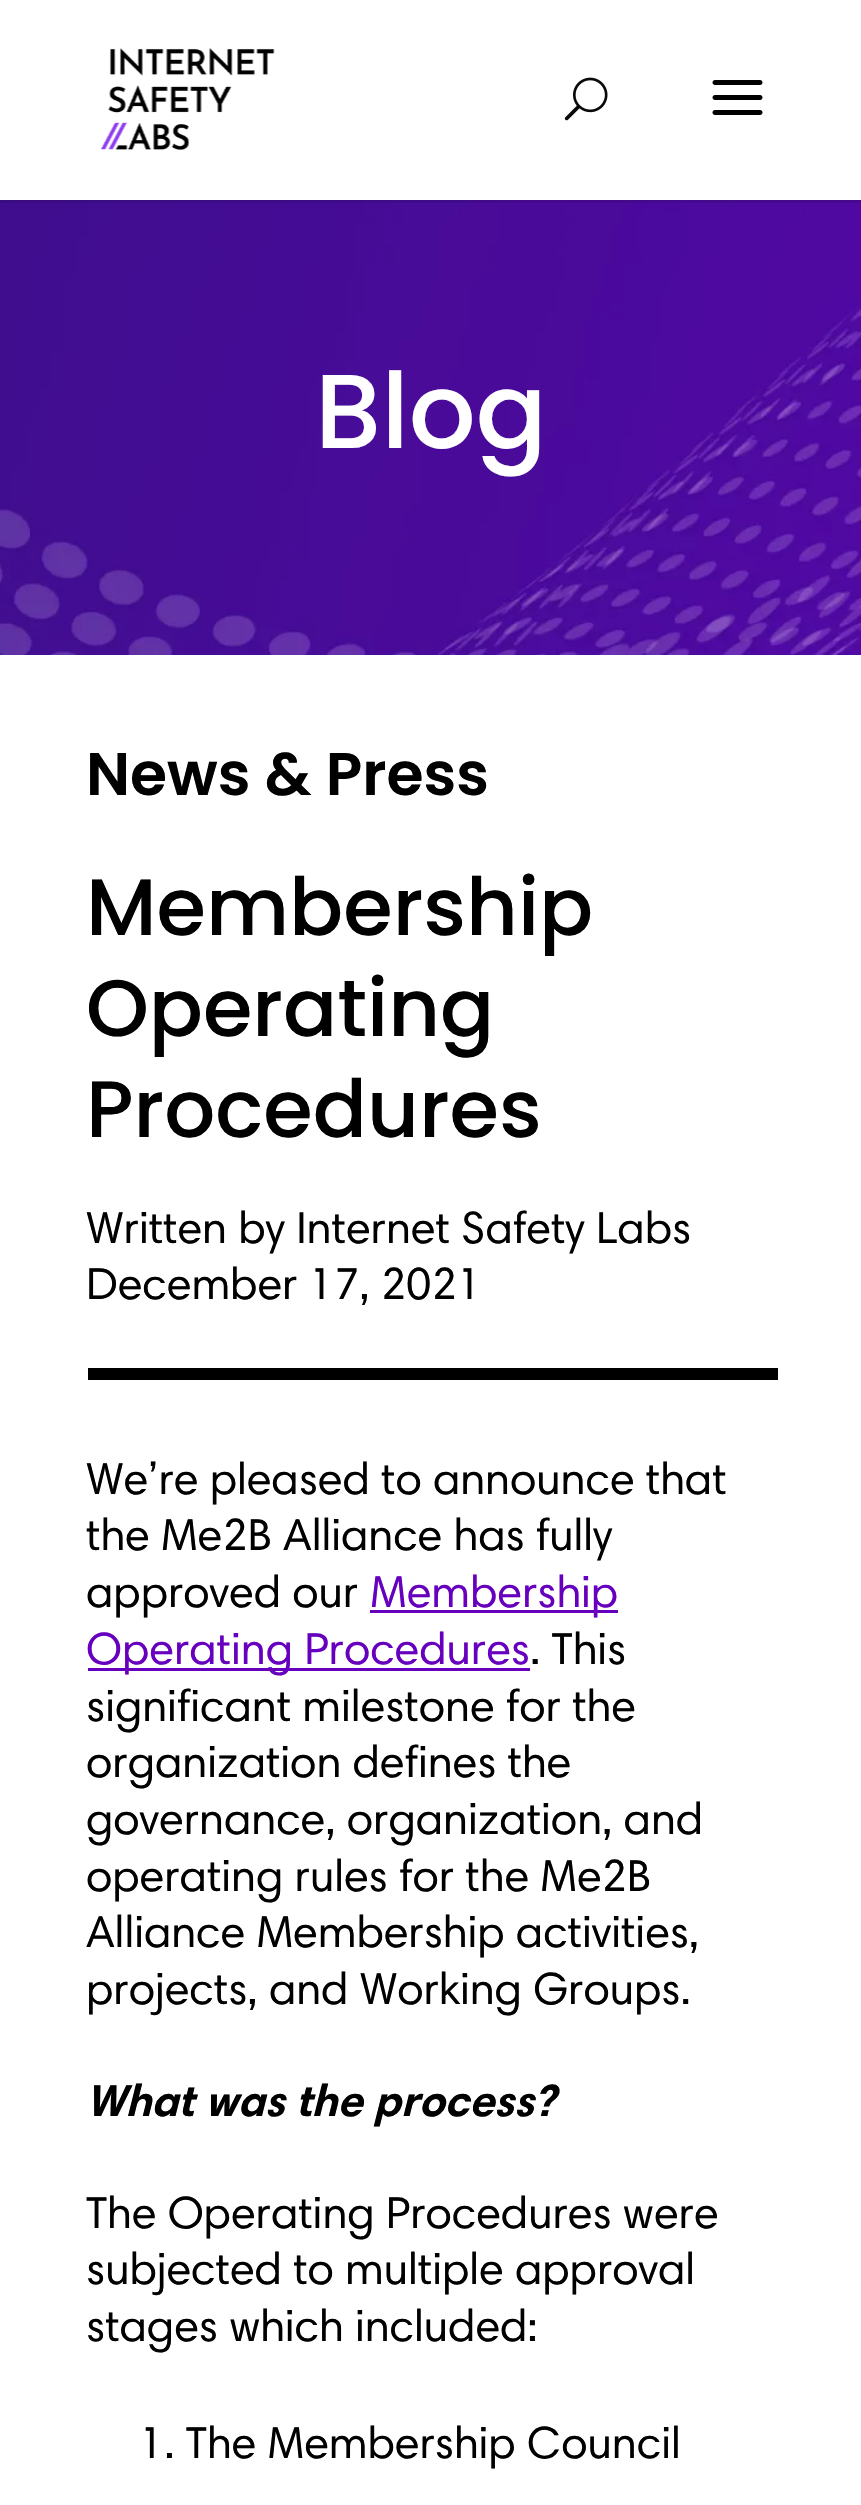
#include "include/core/SkBlurTypes.h"
#include "include/core/SkCanvas.h"
#include "include/core/SkData.h"
#include "include/core/SkFont.h"
#include "include/core/SkFontMgr.h"
#include "include/core/SkImage.h"
#include "include/core/SkMaskFilter.h"
#include "include/core/SkPaint.h"
#include "include/core/SkPathBuilder.h"
#include "include/core/SkTextBlob.h"
#include "include/effects/SkDashPathEffect.h"
#include "include/effects/SkGradientShader.h"
#include "include/utils/SkParsePath.h"

extern sk_sp<SkFontMgr> fontMgr;

static SkFont font(const char* family, int weight, float size, bool italic = false) {
    SkFontStyle style(weight, SkFontStyle::kNormal_Width,
        italic ? SkFontStyle::kItalic_Slant : SkFontStyle::kUpright_Slant);
    SkFont result(fontMgr->matchFamilyStyle(family, style), size);
    result.setSubpixel(true);
    return result;
}

static void drawLabel(SkCanvas* canvas, const char* s, float x, float y, const SkFont& font, SkColor color) {
    SkPaint ink(SkColor4f::FromColor(color));
    ink.setAntiAlias(true);
    canvas->drawString(s, x, y, font, ink);
}

static void fillRect(SkCanvas* canvas, float x, float y, float w, float h, SkColor color) {
    SkPaint ink(SkColor4f::FromColor(color));
    ink.setAntiAlias(true);
    canvas->drawRect(SkRect::MakeXYWH(x, y, w, h), ink);
}

static void drawPhoto(SkCanvas* canvas, const char* path, float x, float y, float w, float h) {
    auto image = SkImages::DeferredFromEncodedData(SkData::MakeFromFileName(path));
    canvas->drawImageRect(image, SkRect::MakeXYWH(x, y, w, h), SkSamplingOptions());
}

static SkPath parsePath(const char* data, bool evenOdd = false) {
    SkPath result = *SkParsePath::FromSVGString(data);
    if (evenOdd) result.setFillType(SkPathFillType::kEvenOdd);
    return result;
}

void draw(SkCanvas* canvas) {
    SkPaint paint;
    paint.setAntiAlias(true);
    canvas->clear(0xFFFFFFFF);
    drawPhoto(canvas, "assets/img4.png", 0, 200, 861, 455);
    paint.setColor(0x1A000000);
    canvas->drawPath(parsePath("M0 200V203H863V3H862V200Z"), paint);
    drawPhoto(canvas, "assets/img1.png", 100, 48, 175, 102);
    drawPhoto(canvas, "assets/img2.png", 564, 77, 44, 44);
    drawPhoto(canvas, "assets/img3.png", 712, 80, 51, 35);
    SkFont font1 = font("Poppins", 500, 105);
    drawLabel(canvas, "Blog", 315, 448, font1, 0xFFFFFFFF);
    SkFont font2 = font("Poppins", 600, 60);
    drawLabel(canvas, "News & Press", 86, 795, font2, 0xFF000000);
    SkFont font3 = font("Poppins", 500, 80);
    drawLabel(canvas, "Membership", 86, 935, font3, 0xFF000000);
    drawLabel(canvas, "Operating", 86, 1036, font3, 0xFF000000);
    drawLabel(canvas, "Procedures", 86, 1137, font3, 0xFF000000);
    SkFont font4 = font("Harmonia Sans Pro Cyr", 400, 45);
    drawLabel(canvas, "Written by Internet Safety Labs", 86, 1243, font4, 0xFF000000);
    drawLabel(canvas, "December 17, 2021", 86, 1299, font4, 0xFF000000);
    fillRect(canvas, 88, 1368, 690, 12, 0xFF000000);
    drawLabel(canvas, "We’re pleased to announce that", 86, 1494, font4, 0xFF000000);
    drawLabel(canvas, "the Me2B Alliance has fully", 86, 1550, font4, 0xFF000000);
    drawLabel(canvas, "approved our", 86, 1607, font4, 0xFF000000);
    fillRect(canvas, 370, 1610, 248, 3, 0xFF6700BE);
    drawLabel(canvas, "Membership", 370, 1607, font4, 0xFF6700BE);
    fillRect(canvas, 88, 1668, 442, 3, 0xFF6700BE);
    drawLabel(canvas, "Operating Procedures", 86, 1664, font4, 0xFF6700BE);
    drawLabel(canvas, ". This", 530, 1664, font4, 0xFF000000);
    drawLabel(canvas, "significant milestone for the", 86, 1721, font4, 0xFF000000);
    drawLabel(canvas, "organization defines the", 86, 1777, font4, 0xFF000000);
    drawLabel(canvas, "governance, organization, and", 86, 1834, font4, 0xFF000000);
    drawLabel(canvas, "operating rules for the Me2B", 86, 1891, font4, 0xFF000000);
    drawLabel(canvas, "Alliance Membership activities,", 86, 1947, font4, 0xFF000000);
    drawLabel(canvas, "projects, and Working Groups.", 86, 2004, font4, 0xFF000000);
    SkFont font5 = font("Harmonia Sans Pro Cyr", 700, 45, true);
    drawLabel(canvas, "What was the process?", 86, 2116, font5, 0xFF000000);
    drawLabel(canvas, "The Operating Procedures were", 86, 2228, font4, 0xFF000000);
    drawLabel(canvas, "subjected to multiple approval", 86, 2284, font4, 0xFF000000);
    drawLabel(canvas, "stages which included:", 86, 2341, font4, 0xFF000000);
    drawLabel(canvas, "1. The Membership Council", 139, 2458, font4, 0xFF000000);
}
